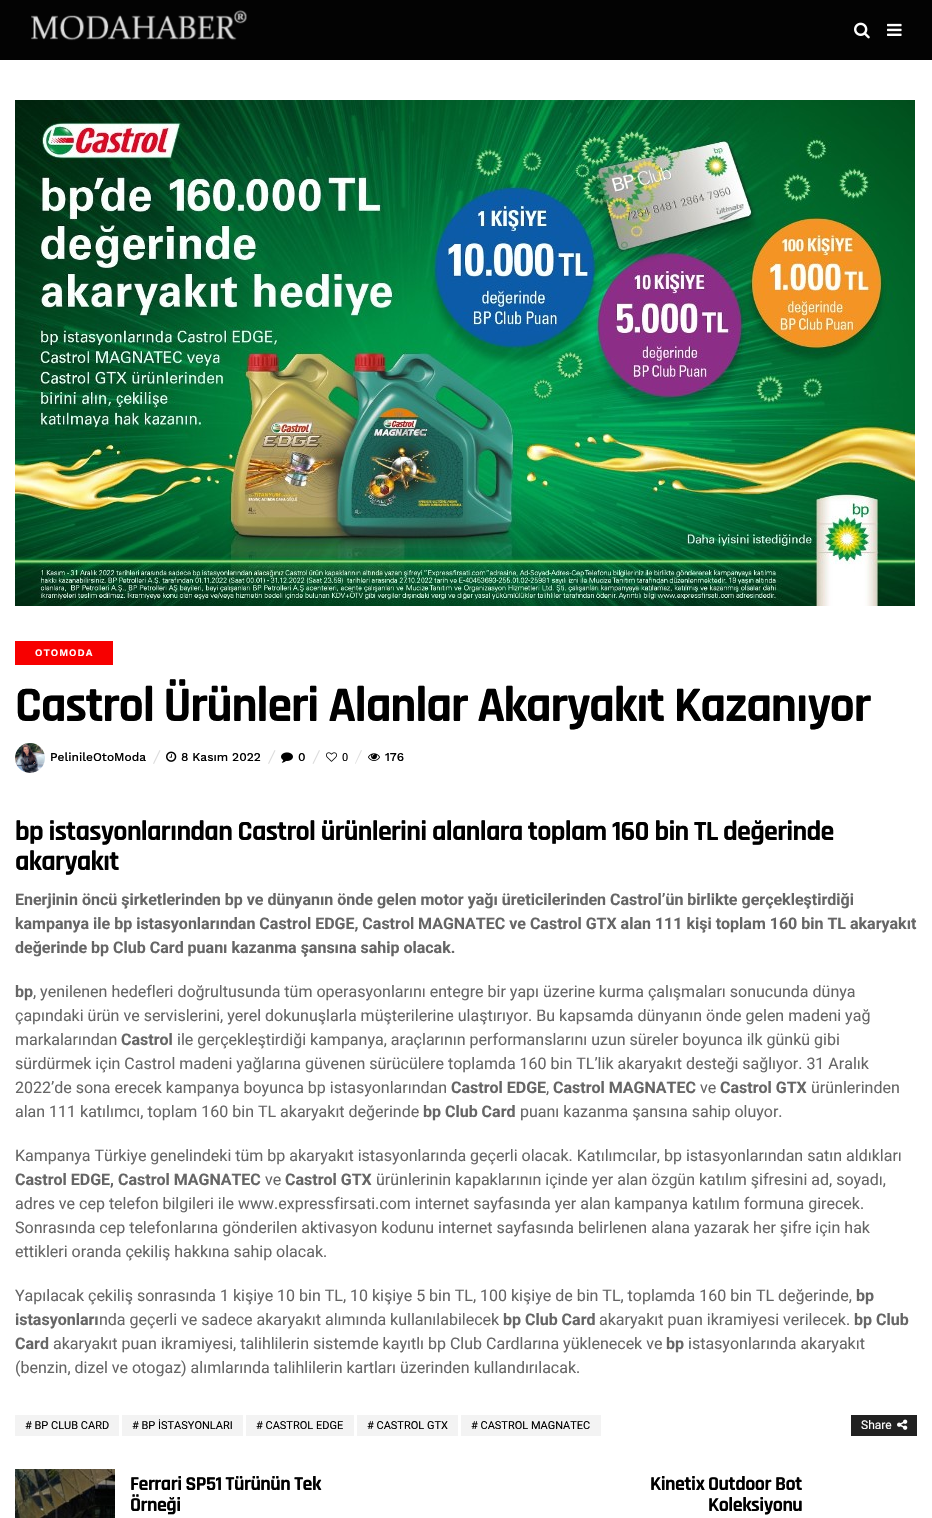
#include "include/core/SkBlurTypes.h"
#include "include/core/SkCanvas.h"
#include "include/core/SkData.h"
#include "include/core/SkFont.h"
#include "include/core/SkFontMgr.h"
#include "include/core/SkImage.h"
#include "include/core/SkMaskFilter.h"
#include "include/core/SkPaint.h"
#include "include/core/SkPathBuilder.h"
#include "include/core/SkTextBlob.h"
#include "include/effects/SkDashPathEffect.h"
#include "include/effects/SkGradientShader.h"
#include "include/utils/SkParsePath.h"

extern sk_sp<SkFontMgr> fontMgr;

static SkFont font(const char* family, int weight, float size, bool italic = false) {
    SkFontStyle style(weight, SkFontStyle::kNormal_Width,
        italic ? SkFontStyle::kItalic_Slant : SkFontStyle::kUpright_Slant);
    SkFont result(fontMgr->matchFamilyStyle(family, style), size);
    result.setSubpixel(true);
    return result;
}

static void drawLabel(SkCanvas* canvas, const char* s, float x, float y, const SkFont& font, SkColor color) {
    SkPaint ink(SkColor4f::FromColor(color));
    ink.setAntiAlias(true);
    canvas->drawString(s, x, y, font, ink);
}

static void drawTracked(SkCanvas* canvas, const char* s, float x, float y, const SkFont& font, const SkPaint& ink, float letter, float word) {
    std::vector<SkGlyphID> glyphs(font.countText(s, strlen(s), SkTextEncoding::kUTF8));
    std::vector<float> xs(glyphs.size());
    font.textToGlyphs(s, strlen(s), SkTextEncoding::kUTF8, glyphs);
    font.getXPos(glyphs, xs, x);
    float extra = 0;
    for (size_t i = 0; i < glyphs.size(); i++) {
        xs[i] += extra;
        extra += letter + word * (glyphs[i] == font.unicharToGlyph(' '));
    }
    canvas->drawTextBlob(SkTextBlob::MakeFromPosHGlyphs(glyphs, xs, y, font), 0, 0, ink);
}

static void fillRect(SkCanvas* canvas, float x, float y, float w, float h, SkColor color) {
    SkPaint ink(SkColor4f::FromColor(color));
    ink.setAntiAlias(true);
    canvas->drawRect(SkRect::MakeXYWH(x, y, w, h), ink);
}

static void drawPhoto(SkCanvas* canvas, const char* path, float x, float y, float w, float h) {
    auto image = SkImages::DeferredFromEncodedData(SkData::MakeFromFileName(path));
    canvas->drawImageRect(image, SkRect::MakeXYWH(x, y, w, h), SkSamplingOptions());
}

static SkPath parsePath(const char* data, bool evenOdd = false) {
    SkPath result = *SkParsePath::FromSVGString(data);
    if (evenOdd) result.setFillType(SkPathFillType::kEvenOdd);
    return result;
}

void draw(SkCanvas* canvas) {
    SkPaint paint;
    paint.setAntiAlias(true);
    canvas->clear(0xFFFFFFFF);
    fillRect(canvas, 0, 0, 932, 60, 0xFF030303);
    drawPhoto(canvas, "assets/img1.png", 31, 10, 216, 31);
    drawPhoto(canvas, "assets/img2.png", 854, 22, 16, 17);
    drawPhoto(canvas, "assets/img3.png", 887, 23, 15, 13);
    drawPhoto(canvas, "assets/img4.png", 15, 100, 900, 506);
    fillRect(canvas, 15, 641, 98, 24, 0xFFF70000);
    SkFont font1 = font("Work Sans", 600, 10);
    paint.setColor(0xFFFFFFFF);
    drawTracked(canvas, "OTOMODA", 35, 656, font1, paint, 1, 0);
    SkFont font2 = font("Rajdhani", 700, 50);
    paint.setColor(0xFF000000);
    drawTracked(canvas, "Castrol Ürünleri Alanlar Akaryakıt Kazanıyor", 15, 721, font2, paint, -1.25f, 0);
    drawPhoto(canvas, "assets/img5.png", 15, 743, 30, 30);
    SkFont font3 = font("Work Sans", 500, 12);
    drawLabel(canvas, "PelinileOtoModa", 50, 761, font3, 0xFF000000);
    paint.setColor(0xFFDDDDDD);
    canvas->drawPath(parsePath("M159.5 750L160.5 750.5L154 764L153 763.5Z"), paint);
    drawPhoto(canvas, "assets/img6.png", 166, 751, 11, 11);
    drawLabel(canvas, "8 Kasım 2022", 181, 761, font3, 0xFF000000);
    drawPhoto(canvas, "assets/img7.png", 281, 752, 12, 11);
    drawLabel(canvas, "0", 298, 761, font3, 0xFF000000);
    canvas->drawPath(parsePath("M274.5 750L275.5 750.5L269 764L268 763.5ZM319 750L320 750.5L313.5 764L312.5 763.5Z"), paint);
    drawPhoto(canvas, "assets/img8.png", 326, 752, 11, 10);
    SkFont font4 = font("Roboto", 400, 11);
    drawLabel(canvas, "0", 342, 761, font4, 0xFF000000);
    canvas->drawPath(parsePath("M361 750L362 750.5L355.5 764L355 763.5Z"), paint);
    drawPhoto(canvas, "assets/img9.png", 368, 753, 12, 8);
    drawLabel(canvas, "176", 385, 761, font3, 0xFF000000);
    SkFont font5 = font("Rajdhani", 700, 28);
    paint.setColor(0xFF000000);
    drawTracked(canvas, "bp istasyonlarından Castrol ürünlerini alanlara toplam 160 bin TL değerinde", 15, 840, font5, paint, -0.7f, 0);
    drawTracked(canvas, "akaryakıt", 15, 870, font5, paint, -0.7f, 0);
    SkFont font6 = font("Roboto", 700, 16);
    drawLabel(canvas, "Enerjinin öncü şirketlerinden bp ve dünyanın önde gelen motor yağı üreticilerinden Castrol’ün birlikte gerçekleştirdiği", 15, 905, font6, 0xFF666666);
    drawLabel(canvas, "kampanya ile bp istasyonlarından Castrol EDGE, Castrol MAGNATEC ve Castrol GTX alan 111 kişi toplam 160 bin TL akaryakıt", 15, 929, font6, 0xFF666666);
    drawLabel(canvas, "değerinde bp Club Card puanı kazanma şansına sahip olacak.", 15, 953, font6, 0xFF666666);
    drawLabel(canvas, "bp", 15, 997, font6, 0xFF666666);
    SkFont font7 = font("Roboto", 400, 16);
    drawLabel(canvas, ", yenilenen hedefleri doğrultusunda tüm operasyonlarını entegre bir yapı üzerine kurma çalışmaları sonucunda dünya", 33, 997, font7, 0xFF666666);
    drawLabel(canvas, "çapındaki ürün ve servislerini, yerel dokunuşlarla müşterilerine ulaştırıyor. Bu kapsamda dünyanın önde gelen madeni yağ", 15, 1021, font7, 0xFF666666);
    drawLabel(canvas, "markalarından", 15, 1045, font7, 0xFF666666);
    drawLabel(canvas, "Castrol", 121, 1045, font6, 0xFF666666);
    drawLabel(canvas, "ile gerçekleştirdiği kampanya, araçlarının performanslarını uzun süreler boyunca ilk günkü gibi", 177, 1045, font7, 0xFF666666);
    drawLabel(canvas, "sürdürmek için Castrol madeni yağlarına güvenen sürücülere toplamda 160 bin TL’lik akaryakıt desteği sağlıyor. 31 Aralık", 15, 1069, font7, 0xFF666666);
    drawLabel(canvas, "2022’de sona erecek kampanya boyunca bp istasyonlarından", 15, 1093, font7, 0xFF666666);
    drawLabel(canvas, "Castrol EDGE", 451, 1093, font6, 0xFF666666);
    drawLabel(canvas, ",", 546, 1093, font7, 0xFF666666);
    drawLabel(canvas, "Castrol MAGNATEC", 553, 1093, font6, 0xFF666666);
    drawLabel(canvas, "ve", 700, 1093, font7, 0xFF666666);
    drawLabel(canvas, "Castrol GTX", 720, 1093, font6, 0xFF666666);
    drawLabel(canvas, "ürünlerinden", 811, 1093, font7, 0xFF666666);
    drawLabel(canvas, "alan 111 katılımcı, toplam 160 bin TL akaryakıt değerinde", 15, 1117, font7, 0xFF666666);
    drawLabel(canvas, "bp Club Card", 423, 1117, font6, 0xFF666666);
    drawLabel(canvas, "puanı kazanma şansına sahip oluyor.", 520, 1117, font7, 0xFF666666);
    drawLabel(canvas, "Kampanya Türkiye genelindeki tüm bp akaryakıt istasyonlarında geçerli olacak. Katılımcılar, bp istasyonlarından satın aldıkları", 15, 1161, font7, 0xFF666666);
    drawLabel(canvas, "Castrol EDGE, Castrol MAGNATEC", 15, 1185, font6, 0xFF666666);
    drawLabel(canvas, "ve", 265, 1185, font7, 0xFF666666);
    drawLabel(canvas, "Castrol GTX", 285, 1185, font6, 0xFF666666);
    drawLabel(canvas, "ürünlerinin kapaklarının içinde yer alan özgün katılım şifresini ad, soyadı,", 376, 1185, font7, 0xFF666666);
    drawLabel(canvas, "adres ve cep telefon bilgileri ile www.expressfirsati.com internet sayfasında yer alan kampanya katılım formuna girecek.", 15, 1209, font7, 0xFF666666);
    drawLabel(canvas, "Sonrasında cep telefonlarına gönderilen aktivasyon kodunu internet sayfasında belirlenen alana yazarak her şifre için hak", 15, 1233, font7, 0xFF666666);
    drawLabel(canvas, "ettikleri oranda çekiliş hakkına sahip olacak.", 15, 1257, font7, 0xFF666666);
    drawLabel(canvas, "Yapılacak çekiliş sonrasında 1 kişiye 10 bin TL, 10 kişiye 5 bin TL, 100 kişiye de bin TL, toplamda 160 bin TL değerinde,", 15, 1301, font7, 0xFF666666);
    drawLabel(canvas, "bp", 856, 1301, font6, 0xFF666666);
    drawLabel(canvas, "istasyonları", 15, 1325, font6, 0xFF666666);
    drawLabel(canvas, "nda geçerli ve sadece akaryakıt alımında kullanılabilecek", 99, 1325, font7, 0xFF666666);
    drawLabel(canvas, "bp Club Card", 503, 1325, font6, 0xFF666666);
    drawLabel(canvas, "akaryakıt puan ikramiyesi verilecek.", 599, 1325, font7, 0xFF666666);
    drawLabel(canvas, "bp Club", 854, 1325, font6, 0xFF666666);
    drawLabel(canvas, "Card", 15, 1349, font6, 0xFF666666);
    drawLabel(canvas, "akaryakıt puan ikramiyesi, talihlilerin sistemde kayıtlı bp Club Cardlarına yüklenecek ve", 53, 1349, font7, 0xFF666666);
    drawLabel(canvas, "bp", 666, 1349, font6, 0xFF666666);
    drawLabel(canvas, "istasyonlarında akaryakıt", 688, 1349, font7, 0xFF666666);
    drawLabel(canvas, "(benzin, dizel ve otogaz) alımlarında talihlilerin kartları üzerinden kullandırılacak.", 15, 1373, font7, 0xFF666666);
    fillRect(canvas, 15, 1415, 104, 21, 0xFFF3F3F3);
    drawLabel(canvas, "# BP CLUB CARD", 25, 1429, font4, 0xFF000000);
    fillRect(canvas, 122, 1415, 121, 21, 0xFFF3F3F3);
    drawLabel(canvas, "# BP İSTASYONLARI", 132, 1429, font4, 0xFF000000);
    fillRect(canvas, 246, 1415, 108, 21, 0xFFF3F3F3);
    drawLabel(canvas, "# CASTROL EDGE", 256, 1429, font4, 0xFF000000);
    fillRect(canvas, 357, 1415, 101, 21, 0xFFF3F3F3);
    drawLabel(canvas, "# CASTROL GTX", 367, 1429, font4, 0xFF000000);
    fillRect(canvas, 461, 1415, 140, 21, 0xFFF3F3F3);
    drawLabel(canvas, "# CASTROL MAGNATEC", 471, 1429, font4, 0xFF000000);
    fillRect(canvas, 851, 1415, 66, 21, 0xFF212121);
    SkFont font8 = font("Roboto", 400, 12);
    drawLabel(canvas, "Share", 861, 1429, font8, 0xFFFFFFFF);
    drawPhoto(canvas, "assets/img10.png", 897, 1419, 11, 11);
    drawPhoto(canvas, "assets/img11.png", 15, 1469, 100, 49);
    SkFont font9 = font("Rajdhani", 700, 20);
    drawTracked(canvas, "Ferrari SP51 Türünün Tek", 130, 1490, font9, paint, -0.5f, 0);
    drawTracked(canvas, "Örneği", 130, 1511, font9, paint, -0.5f, 0);
    drawTracked(canvas, "Kinetix Outdoor Bot", 650, 1490, font9, paint, -0.5f, 0);
    drawTracked(canvas, "Koleksiyonu", 708, 1511, font9, paint, -0.5f, 0);
}
